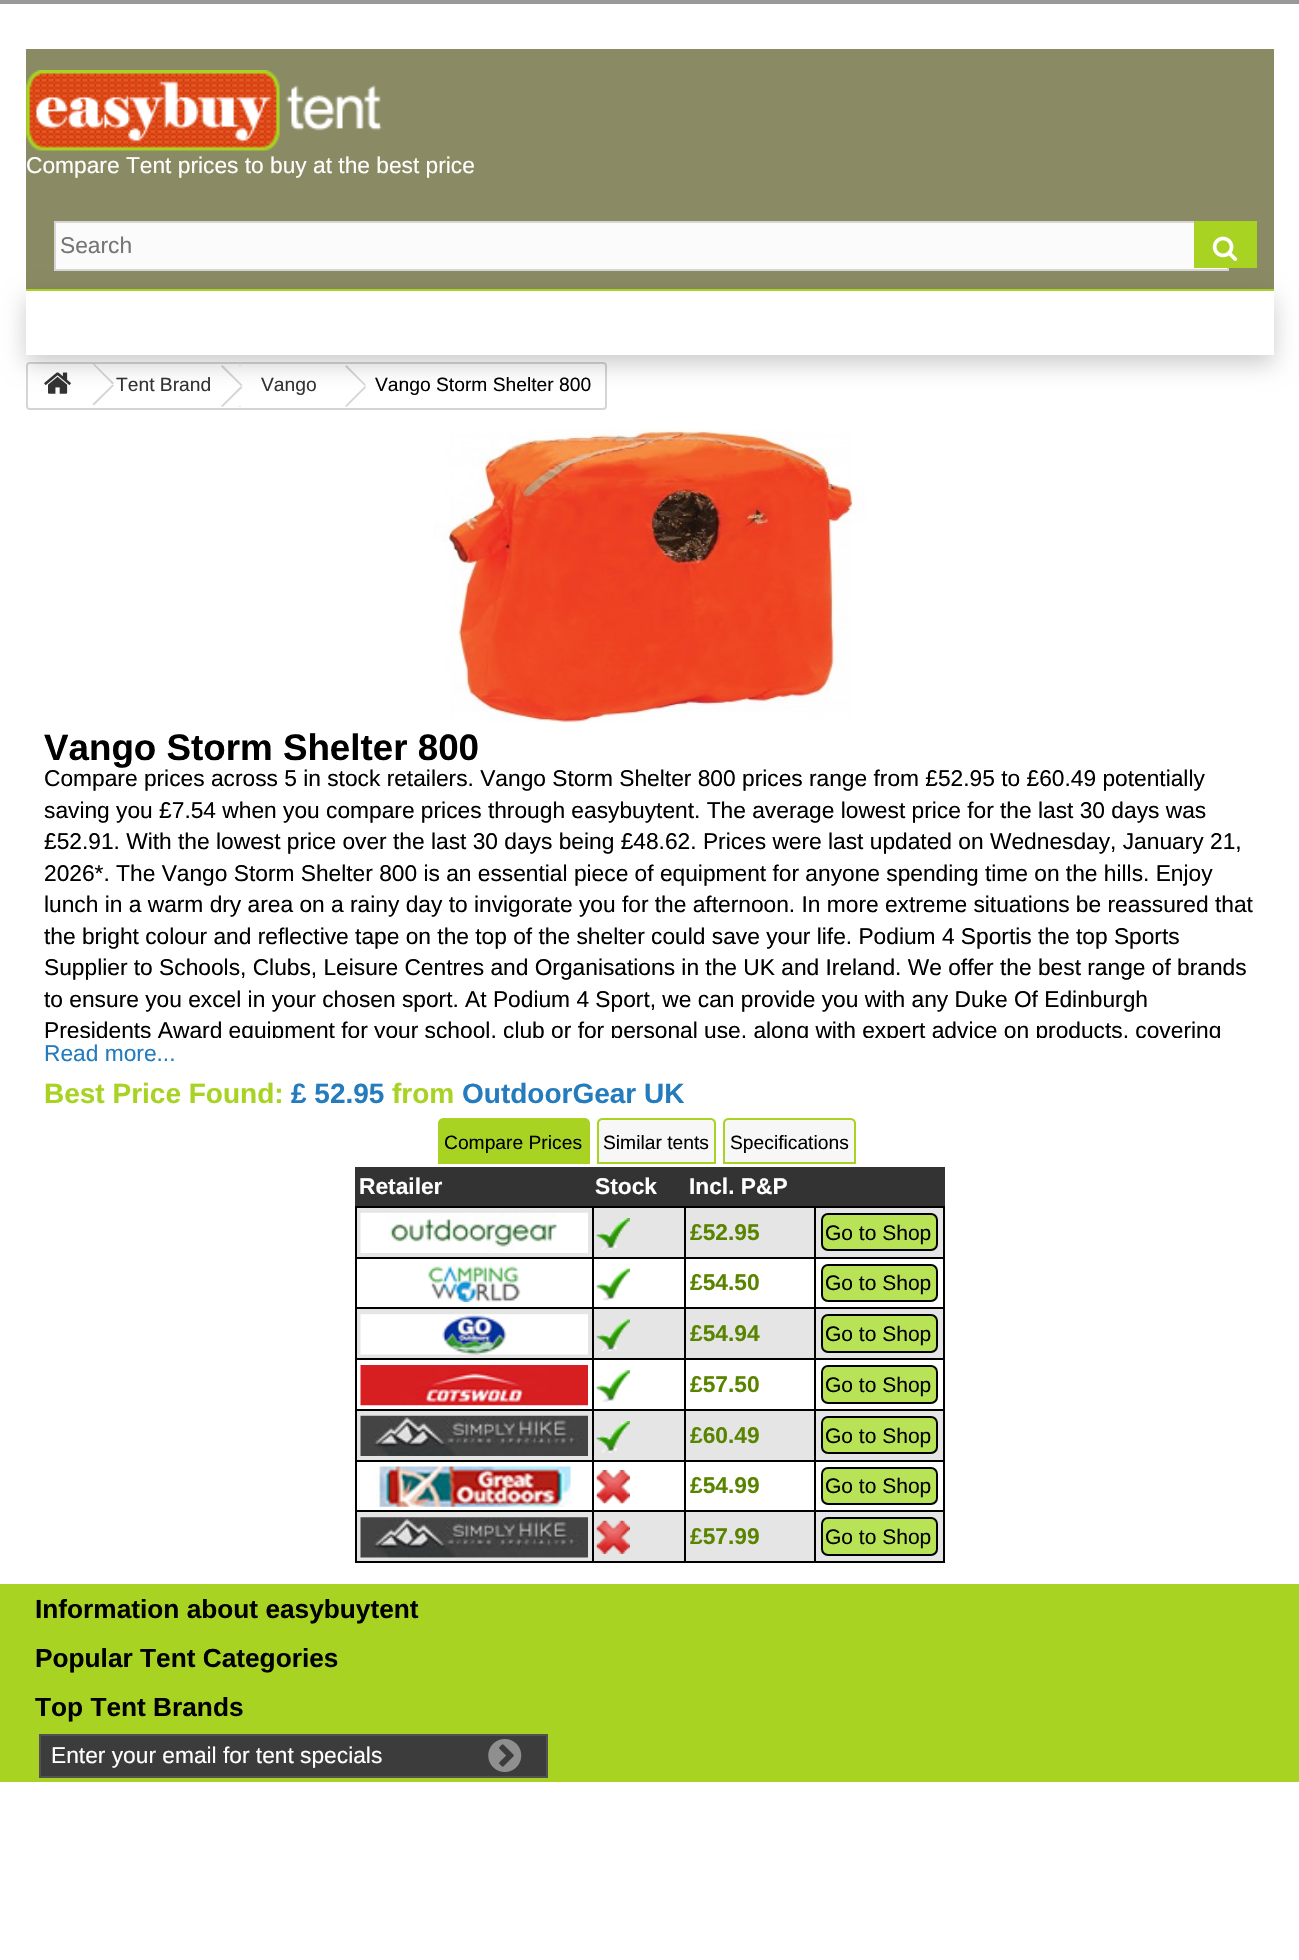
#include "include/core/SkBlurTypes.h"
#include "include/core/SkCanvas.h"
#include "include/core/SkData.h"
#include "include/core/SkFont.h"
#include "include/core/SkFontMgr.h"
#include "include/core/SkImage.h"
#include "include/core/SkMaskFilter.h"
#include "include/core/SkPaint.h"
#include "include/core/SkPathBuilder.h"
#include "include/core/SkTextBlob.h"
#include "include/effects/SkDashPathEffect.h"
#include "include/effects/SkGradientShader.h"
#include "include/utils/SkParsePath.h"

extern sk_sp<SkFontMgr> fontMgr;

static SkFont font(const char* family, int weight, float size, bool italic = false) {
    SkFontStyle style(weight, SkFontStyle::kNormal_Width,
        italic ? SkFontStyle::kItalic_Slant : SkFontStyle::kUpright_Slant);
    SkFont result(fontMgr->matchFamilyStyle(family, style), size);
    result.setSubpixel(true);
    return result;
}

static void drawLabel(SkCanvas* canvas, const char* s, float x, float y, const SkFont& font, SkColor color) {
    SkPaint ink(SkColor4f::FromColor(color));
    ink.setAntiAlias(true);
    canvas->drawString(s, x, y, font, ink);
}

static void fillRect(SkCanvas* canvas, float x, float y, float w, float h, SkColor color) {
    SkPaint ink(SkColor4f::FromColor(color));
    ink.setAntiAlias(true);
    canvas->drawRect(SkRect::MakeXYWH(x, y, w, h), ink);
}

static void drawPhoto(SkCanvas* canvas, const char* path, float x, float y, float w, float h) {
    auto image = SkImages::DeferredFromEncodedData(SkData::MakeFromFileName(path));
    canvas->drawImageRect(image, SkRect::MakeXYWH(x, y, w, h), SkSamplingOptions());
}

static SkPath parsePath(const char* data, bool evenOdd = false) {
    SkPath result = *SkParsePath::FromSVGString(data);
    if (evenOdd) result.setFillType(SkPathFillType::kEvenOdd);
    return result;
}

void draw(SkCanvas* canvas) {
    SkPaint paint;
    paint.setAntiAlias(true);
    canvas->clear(0xFFFFFFFF);
    fillRect(canvas, 0, 0, 1299, 4, 0xFF999999);
    fillRect(canvas, 26, 49, 1248, 240, 0xFF8A8A64);
    drawPhoto(canvas, "assets/img1.png", 26, 70, 356, 81);
    SkFont font1 = font("Liberation Sans", 400, 22.75f);
    drawLabel(canvas, "Compare Tent prices to buy at the best price", 26, 173, font1, 0xFFFFFFFF);
    paint.setColor(0xFFFBFBFB);
    canvas->drawRect(SkRect::MakeXYWH(55, 222, 1173, 48), paint);
    paint.setStroke(true);
    paint.setStrokeWidth(2);
    paint.setColor(0xFFD6D4D4);
    canvas->drawRect(SkRect::MakeXYWH(55, 222, 1173, 48), paint);
    drawLabel(canvas, "Search", 60, 253, font1, 0xFF757575);
    fillRect(canvas, 1194, 221, 63, 47, 0xFFA8D323);
    drawPhoto(canvas, "assets/img2.png", 1212, 236, 26, 25);
    canvas->drawRoundRect(SkRect::MakeXYWH(27, 363, 579, 46), 3, 3, paint);
    canvas->save();
    canvas->clipPath(parsePath("M30 364H604C605 364 606 365 606 366V406C606 407 605 408 604 408H30C29 408 28 407 28 406V366C28 365 29 364 30 364Z"), true);
    paint.setStroke(false);
    paint.setColor(0xFFFFFFFF);
    canvas->drawPath(parsePath("M30 364H91V408H30C27 408 25 406 25 403V369C25 366 27 364 30 364Z"), paint);
    canvas->restore();
    drawPhoto(canvas, "assets/img3.png", 44, 372, 27, 22);
    paint.setColor(0xFFD6D4D4);
    canvas->drawPath(parsePath("M94 363.5L114 383L112.5 384.5L93 364.5Z"), paint);
    canvas->drawPath(parsePath("M112.5 384.5L114 385.5L94 405.5L92.5 404Z"), paint);
    canvas->drawPath(parsePath("M240 365L260 385L258.5 386L238.5 366.5ZM258.5 386L260 387.5L240 407L238.5 406Z"), paint);
    fillRect(canvas, 238, 366, 22, 40, 0xFFFFFFFF);
    canvas->drawPath(parsePath("M222.5 365L242.5 385L241 386L221 366.5ZM241 386L242.5 387.5L222.5 407L221 406Z"), paint);
    canvas->drawPath(parsePath("M346.5 365L366 385L365 386L345 366.5ZM365 386L366 387.5L346.5 407L345 406Z"), paint);
    canvas->save();
    canvas->clipPath(parsePath("M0 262H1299V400H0ZM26 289H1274V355H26Z", true), true);
    paint.setColor(0x33000000);
    paint.setMaskFilter(SkMaskFilter::MakeBlur(kNormal_SkBlurStyle, 11.5f));
    canvas->drawRect(SkRect::MakeXYWH(26, 298, 1248, 66), paint);
    paint.setMaskFilter(nullptr);
    canvas->restore();
    fillRect(canvas, 26, 289, 1248, 2, 0xFFA8D323);
    SkFont font2 = font("Liberation Sans", 400, 19.25f);
    drawLabel(canvas, "Tent Brand", 116, 391, font2, 0xFF333333);
    drawLabel(canvas, "Vango", 261, 391, font2, 0xFF333333);
    drawLabel(canvas, "Vango Storm Shelter 800", 375, 391, font2, 0xFF000000);
    drawPhoto(canvas, "assets/img4.png", 433, 429, 434, 294);
    SkFont font3 = font("Liberation Sans", 700, 36.75f);
    drawLabel(canvas, "Vango Storm Shelter 800", 44, 760, font3, 0xFF000000);
    drawLabel(canvas, "Compare prices across 5 in stock retailers. Vango Storm Shelter 800 prices range from £52.95 to £60.49 potentially", 44, 786, font1, 0xFF000000);
    drawLabel(canvas, "saving you £7.54 when you compare prices through easybuytent. The average lowest price for the last 30 days was", 44, 818, font1, 0xFF000000);
    drawLabel(canvas, "£52.91. With the lowest price over the last 30 days being £48.62. Prices were last updated on Wednesday, January 21,", 44, 849, font1, 0xFF000000);
    drawLabel(canvas, "2026*. The Vango Storm Shelter 800 is an essential piece of equipment for anyone spending time on the hills. Enjoy", 44, 881, font1, 0xFF000000);
    drawLabel(canvas, "lunch in a warm dry area on a rainy day to invigorate you for the afternoon. In more extreme situations be reassured that", 44, 912, font1, 0xFF000000);
    drawLabel(canvas, "the bright colour and reflective tape on the top of the shelter could save your life. Podium 4 Sportis the top Sports", 44, 944, font1, 0xFF000000);
    drawLabel(canvas, "Supplier to Schools, Clubs, Leisure Centres and Organisations in the UK and Ireland. We offer the best range of brands", 44, 975, font1, 0xFF000000);
    drawLabel(canvas, "to ensure you excel in your chosen sport. At Podium 4 Sport, we can provide you with any Duke Of Edinburgh", 44, 1007, font1, 0xFF000000);
    canvas->save();
    canvas->clipRect(SkRect::MakeXYWH(44, 732, 1213, 306));
    drawLabel(canvas, "Presidents Award equipment for your school, club or for personal use, along with expert advice on products, covering", 44, 1038, font1, 0xFF000000);
    canvas->restore();
    drawLabel(canvas, "Read more...", 44, 1061, font1, 0xFF247BBD);
    SkFont font4 = font("Liberation Sans", 700, 28);
    drawLabel(canvas, "Best Price Found:", 44, 1103, font4, 0xFFA8D323);
    drawLabel(canvas, "£ 52.95", 291, 1103, font4, 0xFF247BBD);
    drawLabel(canvas, "from", 392, 1103, font4, 0xFFA8D323);
    drawLabel(canvas, "OutdoorGear UK", 462, 1103, font4, 0xFF247BBD);
    paint.setColor(0xFFA8D323);
    canvas->drawPath(parsePath("M443 1119H585C587 1119 589 1121 589 1123V1163H439V1123C439 1121 441 1119 443 1119Z"), paint);
    paint.setStroke(true);
    canvas->drawPath(parsePath("M443 1119H585C587 1119 589 1121 589 1123V1163H439V1123C439 1121 441 1119 443 1119Z"), paint);
    drawLabel(canvas, "Compare Prices", 444, 1149, font2, 0xFF000000);
    paint.setStroke(false);
    paint.setColor(0xFFF7F7F7);
    canvas->drawPath(parsePath("M602 1119H711C713 1119 715 1121 715 1123V1163H598V1123C598 1121 600 1119 602 1119Z"), paint);
    paint.setStroke(true);
    paint.setColor(0xFFA8D323);
    canvas->drawPath(parsePath("M602 1119H711C713 1119 715 1121 715 1123V1163H598V1123C598 1121 600 1119 602 1119Z"), paint);
    drawLabel(canvas, "Similar tents", 603, 1149, font2, 0xFF000000);
    paint.setStroke(false);
    paint.setColor(0xFFF7F7F7);
    canvas->drawPath(parsePath("M728 1119H851C853 1119 855 1121 855 1123V1163H724V1123C724 1121 726 1119 728 1119Z"), paint);
    paint.setStroke(true);
    paint.setColor(0xFFA8D323);
    canvas->drawPath(parsePath("M728 1119H851C853 1119 855 1121 855 1123V1163H724V1123C724 1121 726 1119 728 1119Z"), paint);
    drawLabel(canvas, "Specifications", 730, 1149, font2, 0xFF000000);
    fillRect(canvas, 355, 1167, 590, 39, 0xFF333333);
    SkFont font5 = font("Liberation Sans", 700, 22.75f);
    drawLabel(canvas, "Retailer", 359, 1194, font5, 0xFFFFFFFF);
    drawLabel(canvas, "Stock", 595, 1194, font5, 0xFFFFFFFF);
    drawLabel(canvas, "Incl. P&P", 689, 1194, font5, 0xFFFFFFFF);
    fillRect(canvas, 357, 1208, 586, 49, 0xFFE5E5E5);
    fillRect(canvas, 814, 1206, 131, 2, 0xFF000000);
    fillRect(canvas, 814, 1257, 131, 2, 0xFF000000);
    fillRect(canvas, 814, 1307, 131, 2, 0xFF000000);
    fillRect(canvas, 357, 1309, 586, 49, 0xFFE5E5E5);
    fillRect(canvas, 814, 1358, 131, 2, 0xFF000000);
    fillRect(canvas, 814, 1409, 131, 2, 0xFF000000);
    fillRect(canvas, 357, 1411, 586, 49, 0xFFE5E5E5);
    fillRect(canvas, 814, 1460, 131, 2, 0xFF000000);
    fillRect(canvas, 814, 1510, 131, 2, 0xFF000000);
    fillRect(canvas, 357, 1512, 586, 49, 0xFFE5E5E5);
    fillRect(canvas, 943, 1510, 2, 53, 0xFF000000);
    fillRect(canvas, 814, 1561, 131, 2, 0xFF000000);
    fillRect(canvas, 814, 1510, 2, 53, 0xFF000000);
    fillRect(canvas, 684, 1510, 132, 2, 0xFF000000);
    fillRect(canvas, 814, 1460, 2, 52, 0xFF000000);
    fillRect(canvas, 684, 1460, 132, 2, 0xFF000000);
    fillRect(canvas, 814, 1409, 2, 52, 0xFF000000);
    fillRect(canvas, 684, 1409, 132, 2, 0xFF000000);
    fillRect(canvas, 814, 1358, 2, 53, 0xFF000000);
    fillRect(canvas, 684, 1358, 132, 2, 0xFF000000);
    fillRect(canvas, 814, 1307, 2, 53, 0xFF000000);
    fillRect(canvas, 684, 1307, 132, 2, 0xFF000000);
    fillRect(canvas, 814, 1257, 2, 52, 0xFF000000);
    fillRect(canvas, 684, 1257, 132, 2, 0xFF000000);
    fillRect(canvas, 814, 1206, 2, 52, 0xFF000000);
    fillRect(canvas, 684, 1206, 132, 2, 0xFF000000);
    fillRect(canvas, 684, 1561, 132, 2, 0xFF000000);
    fillRect(canvas, 684, 1510, 2, 53, 0xFF000000);
    fillRect(canvas, 592, 1510, 94, 2, 0xFF000000);
    fillRect(canvas, 684, 1460, 2, 52, 0xFF000000);
    fillRect(canvas, 592, 1460, 94, 2, 0xFF000000);
    fillRect(canvas, 684, 1409, 2, 52, 0xFF000000);
    fillRect(canvas, 592, 1409, 94, 2, 0xFF000000);
    fillRect(canvas, 684, 1358, 2, 53, 0xFF000000);
    fillRect(canvas, 592, 1358, 94, 2, 0xFF000000);
    fillRect(canvas, 684, 1307, 2, 53, 0xFF000000);
    fillRect(canvas, 592, 1307, 94, 2, 0xFF000000);
    fillRect(canvas, 684, 1257, 2, 52, 0xFF000000);
    fillRect(canvas, 592, 1257, 94, 2, 0xFF000000);
    fillRect(canvas, 684, 1206, 2, 52, 0xFF000000);
    fillRect(canvas, 592, 1206, 94, 2, 0xFF000000);
    fillRect(canvas, 592, 1561, 94, 2, 0xFF000000);
    fillRect(canvas, 592, 1510, 2, 53, 0xFF000000);
    fillRect(canvas, 355, 1510, 238, 2, 0xFF000000);
    fillRect(canvas, 592, 1460, 2, 52, 0xFF000000);
    fillRect(canvas, 355, 1460, 238, 2, 0xFF000000);
    fillRect(canvas, 592, 1409, 2, 52, 0xFF000000);
    fillRect(canvas, 355, 1409, 238, 2, 0xFF000000);
    fillRect(canvas, 592, 1358, 2, 53, 0xFF000000);
    fillRect(canvas, 355, 1358, 238, 2, 0xFF000000);
    fillRect(canvas, 592, 1307, 2, 53, 0xFF000000);
    fillRect(canvas, 355, 1307, 238, 2, 0xFF000000);
    fillRect(canvas, 592, 1257, 2, 52, 0xFF000000);
    fillRect(canvas, 355, 1257, 238, 2, 0xFF000000);
    fillRect(canvas, 592, 1206, 2, 52, 0xFF000000);
    fillRect(canvas, 355, 1206, 238, 2, 0xFF000000);
    fillRect(canvas, 355, 1561, 238, 2, 0xFF000000);
    fillRect(canvas, 355, 1510, 2, 53, 0xFF000000);
    fillRect(canvas, 355, 1460, 2, 52, 0xFF000000);
    fillRect(canvas, 355, 1409, 2, 52, 0xFF000000);
    fillRect(canvas, 355, 1358, 2, 53, 0xFF000000);
    fillRect(canvas, 355, 1307, 2, 53, 0xFF000000);
    fillRect(canvas, 355, 1257, 2, 52, 0xFF000000);
    fillRect(canvas, 355, 1206, 2, 52, 0xFF000000);
    drawPhoto(canvas, "assets/img5.png", 360, 1212, 228, 41);
    drawPhoto(canvas, "assets/img6.png", 596, 1218, 34, 32);
    drawLabel(canvas, "£52.95", 690, 1240, font5, 0xFF598400);
    fillRect(canvas, 943, 1460, 2, 52, 0xFF000000);
    fillRect(canvas, 943, 1409, 2, 52, 0xFF000000);
    fillRect(canvas, 943, 1358, 2, 53, 0xFF000000);
    fillRect(canvas, 943, 1307, 2, 53, 0xFF000000);
    fillRect(canvas, 943, 1257, 2, 52, 0xFF000000);
    fillRect(canvas, 943, 1206, 2, 52, 0xFF000000);
    paint.setStroke(false);
    paint.setColor(0xFFB8E356);
    canvas->drawRoundRect(SkRect::MakeXYWH(822, 1214, 115, 36), 6, 6, paint);
    paint.setStroke(true);
    paint.setColor(0xFF000000);
    canvas->drawRoundRect(SkRect::MakeXYWH(822, 1214, 115, 36), 6, 6, paint);
    SkFont font6 = font("Liberation Sans", 400, 21);
    drawLabel(canvas, "Go to Shop", 825, 1240, font6, 0xFF000000);
    drawPhoto(canvas, "assets/img7.png", 428, 1265, 93, 37);
    drawPhoto(canvas, "assets/img8.png", 596, 1268, 34, 33);
    drawLabel(canvas, "£54.50", 690, 1290, font5, 0xFF598400);
    paint.setStroke(false);
    paint.setColor(0xFFB8E356);
    canvas->drawRoundRect(SkRect::MakeXYWH(822, 1265, 115, 36), 6, 6, paint);
    paint.setStroke(true);
    paint.setColor(0xFF000000);
    canvas->drawRoundRect(SkRect::MakeXYWH(822, 1265, 115, 36), 6, 6, paint);
    drawLabel(canvas, "Go to Shop", 825, 1290, font6, 0xFF000000);
    drawPhoto(canvas, "assets/img9.png", 360, 1314, 228, 41);
    drawPhoto(canvas, "assets/img10.png", 596, 1319, 34, 32);
    drawLabel(canvas, "£54.94", 690, 1341, font5, 0xFF598400);
    paint.setStroke(false);
    paint.setColor(0xFFB8E356);
    canvas->drawRoundRect(SkRect::MakeXYWH(822, 1315, 115, 37), 6, 6, paint);
    paint.setStroke(true);
    paint.setColor(0xFF000000);
    canvas->drawRoundRect(SkRect::MakeXYWH(822, 1315, 115, 37), 6, 6, paint);
    drawLabel(canvas, "Go to Shop", 825, 1341, font6, 0xFF000000);
    drawPhoto(canvas, "assets/img11.png", 360, 1365, 228, 41);
    drawPhoto(canvas, "assets/img12.png", 596, 1370, 34, 32);
    drawLabel(canvas, "£57.50", 690, 1392, font5, 0xFF598400);
    paint.setStroke(false);
    paint.setColor(0xFFB8E356);
    canvas->drawRoundRect(SkRect::MakeXYWH(822, 1366, 115, 37), 6, 6, paint);
    paint.setStroke(true);
    paint.setColor(0xFF000000);
    canvas->drawRoundRect(SkRect::MakeXYWH(822, 1366, 115, 37), 6, 6, paint);
    drawLabel(canvas, "Go to Shop", 825, 1392, font6, 0xFF000000);
    drawPhoto(canvas, "assets/img13.png", 360, 1415, 228, 41);
    drawPhoto(canvas, "assets/img6.png", 596, 1421, 34, 32);
    drawLabel(canvas, "£60.49", 690, 1443, font5, 0xFF598400);
    paint.setStroke(false);
    paint.setColor(0xFFB8E356);
    canvas->drawRoundRect(SkRect::MakeXYWH(822, 1417, 115, 36), 6, 6, paint);
    paint.setStroke(true);
    paint.setColor(0xFF000000);
    canvas->drawRoundRect(SkRect::MakeXYWH(822, 1417, 115, 36), 6, 6, paint);
    drawLabel(canvas, "Go to Shop", 825, 1443, font6, 0xFF000000);
    drawPhoto(canvas, "assets/img14.png", 375, 1466, 196, 41);
    drawPhoto(canvas, "assets/img15.png", 596, 1470, 34, 34);
    drawLabel(canvas, "£54.99", 690, 1493, font5, 0xFF598400);
    paint.setStroke(false);
    paint.setColor(0xFFB8E356);
    canvas->drawRoundRect(SkRect::MakeXYWH(822, 1468, 115, 36), 6, 6, paint);
    paint.setStroke(true);
    paint.setColor(0xFF000000);
    canvas->drawRoundRect(SkRect::MakeXYWH(822, 1468, 115, 36), 6, 6, paint);
    drawLabel(canvas, "Go to Shop", 825, 1493, font6, 0xFF000000);
    drawPhoto(canvas, "assets/img16.png", 360, 1517, 228, 41);
    drawPhoto(canvas, "assets/img17.png", 596, 1520, 34, 34);
    drawLabel(canvas, "£57.99", 690, 1544, font5, 0xFF598400);
    paint.setStroke(false);
    paint.setColor(0xFFB8E356);
    canvas->drawRoundRect(SkRect::MakeXYWH(822, 1518, 115, 37), 6, 6, paint);
    paint.setStroke(true);
    paint.setColor(0xFF000000);
    canvas->drawRoundRect(SkRect::MakeXYWH(822, 1518, 115, 37), 6, 6, paint);
    drawLabel(canvas, "Go to Shop", 825, 1544, font6, 0xFF000000);
    fillRect(canvas, 0, 1584, 1299, 198, 0xFFA8D323);
    SkFont font7 = font("Liberation Sans", 700, 26.25f);
    drawLabel(canvas, "Information about easybuytent", 35, 1618, font7, 0xFF000000);
    drawLabel(canvas, "Popular Tent Categories", 35, 1667, font7, 0xFF000000);
    drawLabel(canvas, "Top Tent Brands", 35, 1716, font7, 0xFF000000);
    paint.setStroke(false);
    paint.setColor(0xFF3C3C3C);
    canvas->drawRect(SkRect::MakeXYWH(40, 1735, 507, 42), paint);
    paint.setStroke(true);
    paint.setColor(0xFF515151);
    canvas->drawRect(SkRect::MakeXYWH(40, 1735, 507, 42), paint);
    drawLabel(canvas, "Enter your email for tent specials", 51, 1763, font1, 0xFFFFFFFF);
    drawPhoto(canvas, "assets/img18.png", 488, 1739, 34, 33);
}
